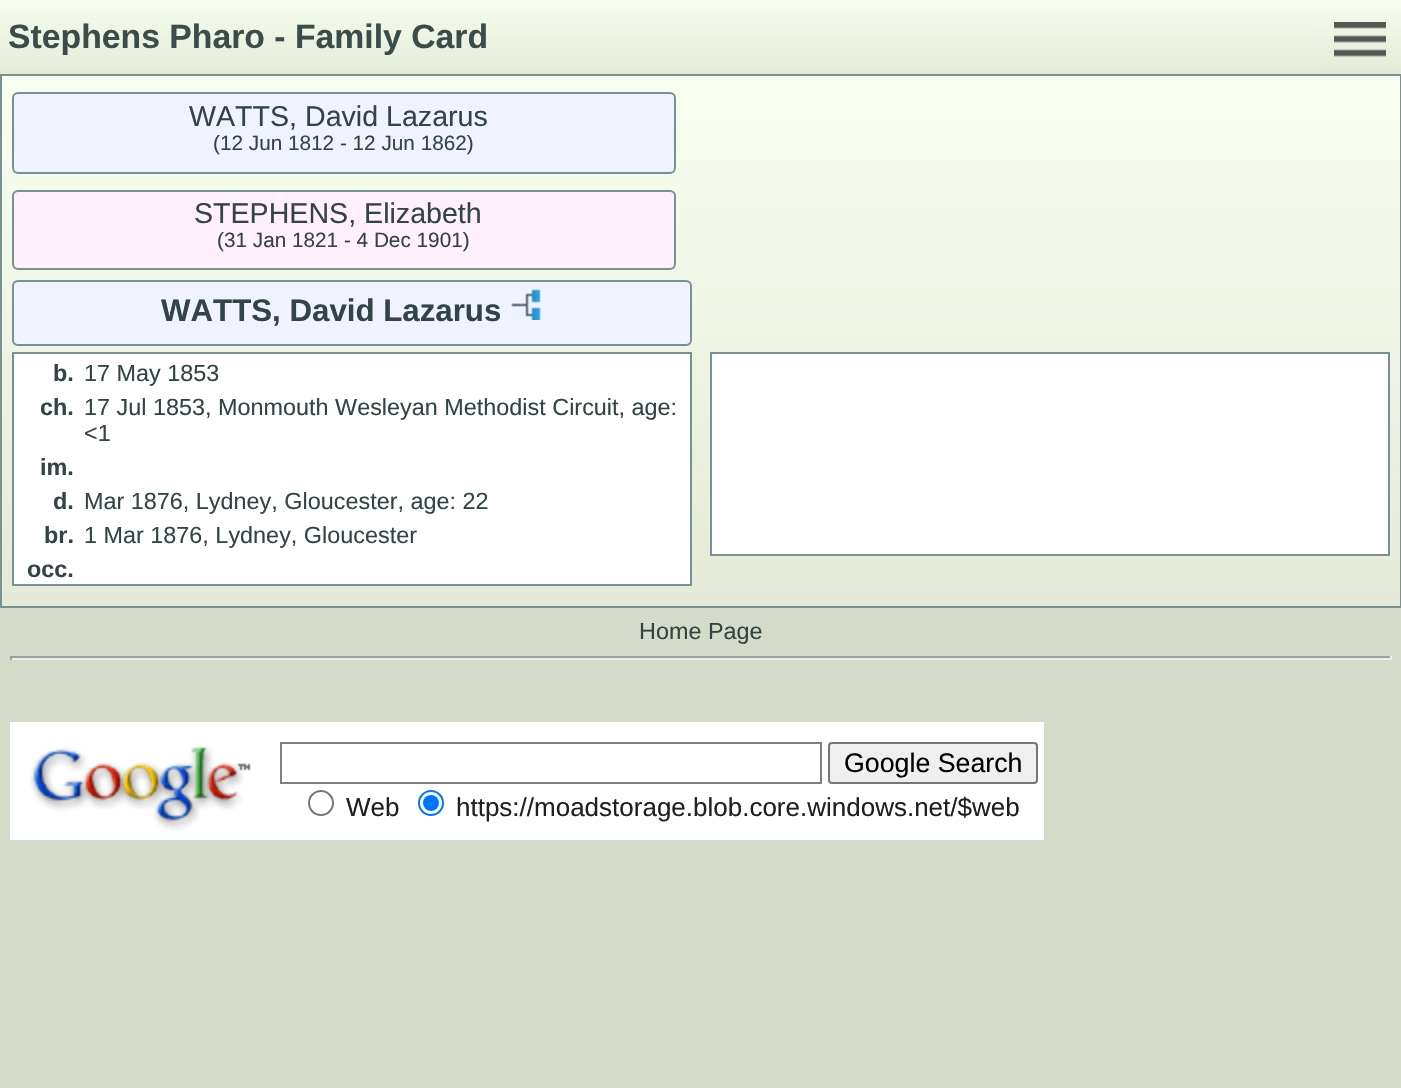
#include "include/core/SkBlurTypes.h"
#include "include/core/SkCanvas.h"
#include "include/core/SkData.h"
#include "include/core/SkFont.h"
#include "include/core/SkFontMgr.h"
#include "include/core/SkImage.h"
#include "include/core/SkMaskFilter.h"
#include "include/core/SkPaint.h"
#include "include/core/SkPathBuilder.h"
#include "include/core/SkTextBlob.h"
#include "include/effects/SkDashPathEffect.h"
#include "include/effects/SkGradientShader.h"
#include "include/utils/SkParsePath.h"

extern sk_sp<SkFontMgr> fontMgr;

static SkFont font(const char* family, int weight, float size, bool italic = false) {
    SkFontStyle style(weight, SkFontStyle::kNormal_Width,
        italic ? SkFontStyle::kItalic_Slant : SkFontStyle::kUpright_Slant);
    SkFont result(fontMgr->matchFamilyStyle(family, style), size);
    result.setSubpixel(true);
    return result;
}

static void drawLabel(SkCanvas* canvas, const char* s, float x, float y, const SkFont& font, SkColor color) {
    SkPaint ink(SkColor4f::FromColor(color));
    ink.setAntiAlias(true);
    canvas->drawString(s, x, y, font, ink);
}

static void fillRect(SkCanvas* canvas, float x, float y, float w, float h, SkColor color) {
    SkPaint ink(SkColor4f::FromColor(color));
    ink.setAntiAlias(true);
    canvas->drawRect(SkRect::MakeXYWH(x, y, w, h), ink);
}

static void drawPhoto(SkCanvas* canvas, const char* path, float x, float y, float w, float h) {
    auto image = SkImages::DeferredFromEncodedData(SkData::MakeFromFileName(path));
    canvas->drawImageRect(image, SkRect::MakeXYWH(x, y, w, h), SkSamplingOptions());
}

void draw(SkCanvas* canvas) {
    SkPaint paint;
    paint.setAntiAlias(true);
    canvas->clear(0xFFD5DBC9);
    fillRect(canvas, 0, 0, 1401, 74, 0xFFF6FDF0);
    drawPhoto(canvas, "assets/img1.png", 0, 13, 1401, 61);
    SkFont font1 = font("Liberation Sans", 700, 33.75f);
    drawLabel(canvas, "Stephens Pharo - Family Card", 8, 48, font1, 0xFF3B4C4B);
    fillRect(canvas, 1314, 13, 87, 57, 0xFFF6FDF0);
    drawPhoto(canvas, "assets/img2.png", 1314, 13, 87, 57);
    drawPhoto(canvas, "assets/img3.png", 1334, 22, 52, 35);
    fillRect(canvas, 2, 76, 1398, 526, 0xFFF8FFF2);
    drawPhoto(canvas, "assets/img4.png", 2, 87, 1398, 519);
    paint.setStroke(true);
    paint.setStrokeWidth(2);
    paint.setColor(0xFF7A9191);
    canvas->drawRect(SkRect::MakeXYWH(1, 75, 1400, 532), paint);
    paint.setStroke(false);
    paint.setColor(0xFFF0F2FF);
    canvas->drawRoundRect(SkRect::MakeXYWH(13, 93, 662, 80), 5, 5, paint);
    paint.setStroke(true);
    paint.setColor(0xFF7A9191);
    canvas->drawRoundRect(SkRect::MakeXYWH(13, 93, 662, 80), 5, 5, paint);
    SkFont font2 = font("Liberation Sans", 400, 28.6f);
    drawLabel(canvas, "WATTS, David Lazarus", 189, 126, font2, 0xFF334444);
    SkFont font3 = font("Liberation Sans", 400, 20.75f);
    drawLabel(canvas, "(12 Jun 1812 - 12 Jun 1862)", 213, 150, font3, 0xFF334444);
    paint.setStroke(false);
    paint.setColor(0xFFFFF0FB);
    canvas->drawRoundRect(SkRect::MakeXYWH(13, 191, 662, 78), 5, 5, paint);
    paint.setStroke(true);
    paint.setColor(0xFF7A9191);
    canvas->drawRoundRect(SkRect::MakeXYWH(13, 191, 662, 78), 5, 5, paint);
    drawLabel(canvas, "STEPHENS, Elizabeth", 194, 223, font2, 0xFF334444);
    drawLabel(canvas, "(31 Jan 1821 - 4 Dec 1901)", 217, 247, font3, 0xFF334444);
    paint.setStroke(false);
    paint.setColor(0xFFF0F2FF);
    canvas->drawRoundRect(SkRect::MakeXYWH(13, 281, 678, 64), 5, 5, paint);
    paint.setStroke(true);
    paint.setColor(0xFF7A9191);
    canvas->drawRoundRect(SkRect::MakeXYWH(13, 281, 678, 64), 5, 5, paint);
    SkFont font4 = font("Liberation Sans", 700, 31.25f);
    drawLabel(canvas, "WATTS, David Lazarus", 161, 321, font4, 0xFF334444);
    drawPhoto(canvas, "assets/img5.png", 511, 289, 30, 31);
    paint.setStroke(false);
    paint.setColor(0xFFFFFFFF);
    canvas->drawRect(SkRect::MakeXYWH(13, 353, 678, 232), paint);
    paint.setStroke(true);
    paint.setColor(0xFF7A9191);
    canvas->drawRect(SkRect::MakeXYWH(13, 353, 678, 232), paint);
    SkFont font5 = font("Liberation Sans", 700, 23.4f);
    drawLabel(canvas, "b.", 53, 381, font5, 0xFF334444);
    SkFont font6 = font("Liberation Sans", 400, 23.4f);
    drawLabel(canvas, "17 May 1853", 84, 381, font6, 0xFF334444);
    drawLabel(canvas, "ch.", 40, 415, font5, 0xFF334444);
    drawLabel(canvas, "17 Jul 1853, Monmouth Wesleyan Methodist Circuit, age:", 84, 415, font6, 0xFF334444);
    drawLabel(canvas, "<1", 84, 441, font6, 0xFF334444);
    drawLabel(canvas, "im.", 40, 475, font5, 0xFF334444);
    drawLabel(canvas, "d.", 53, 509, font5, 0xFF334444);
    drawLabel(canvas, "Mar 1876, Lydney, Gloucester, age: 22", 84, 509, font6, 0xFF334444);
    drawLabel(canvas, "br.", 44, 543, font5, 0xFF334444);
    drawLabel(canvas, "1 Mar 1876, Lydney, Gloucester", 84, 543, font6, 0xFF334444);
    drawLabel(canvas, "occ.", 27, 577, font5, 0xFF334444);
    paint.setStroke(false);
    paint.setColor(0xFFFFFFFF);
    canvas->drawRect(SkRect::MakeXYWH(711, 353, 678, 202), paint);
    paint.setStroke(true);
    paint.setColor(0xFF7A9191);
    canvas->drawRect(SkRect::MakeXYWH(711, 353, 678, 202), paint);
    drawLabel(canvas, "Home Page", 639, 639, font6, 0xFF334444);
    fillRect(canvas, 10, 656, 1382, 2, 0xFF9F9F9F);
    fillRect(canvas, 1390, 656, 2, 4, 0xFFEEEEEE);
    fillRect(canvas, 10, 658, 1382, 2, 0xFFEEEEEE);
    fillRect(canvas, 10, 656, 2, 4, 0xFF9F9F9F);
    fillRect(canvas, 10, 722, 1034, 118, 0xFFFFFFFF);
    drawPhoto(canvas, "assets/img6.png", 29, 745, 222, 86);
    paint.setColor(0xFF808080);
    canvas->drawRect(SkRect::MakeXYWH(281, 743, 540, 40), paint);
    paint.setStroke(false);
    paint.setColor(0xFFEFEFEF);
    canvas->drawRoundRect(SkRect::MakeXYWH(829, 743, 208, 40), 3, 3, paint);
    paint.setStroke(true);
    paint.setColor(0xFF767676);
    canvas->drawRoundRect(SkRect::MakeXYWH(829, 743, 208, 40), 3, 3, paint);
    SkFont font7 = font("Liberation Sans", 400, 26.75f);
    drawLabel(canvas, "Google Search", 844, 772, font7, 0xFF000000);
    canvas->drawCircle(321, 803, 12, paint);
    SkFont font8 = font("Liberation Sans", 400, 26);
    drawLabel(canvas, "Web", 346, 816, font8, 0xFF202020);
    paint.setColor(0xFF0075FF);
    canvas->drawCircle(431, 803, 12, paint);
    paint.setStroke(false);
    canvas->drawCircle(431, 803, 8, paint);
    drawLabel(canvas, "https://moadstorage.blob.core.windows.net/$web", 456, 816, font8, 0xFF202020);
}
